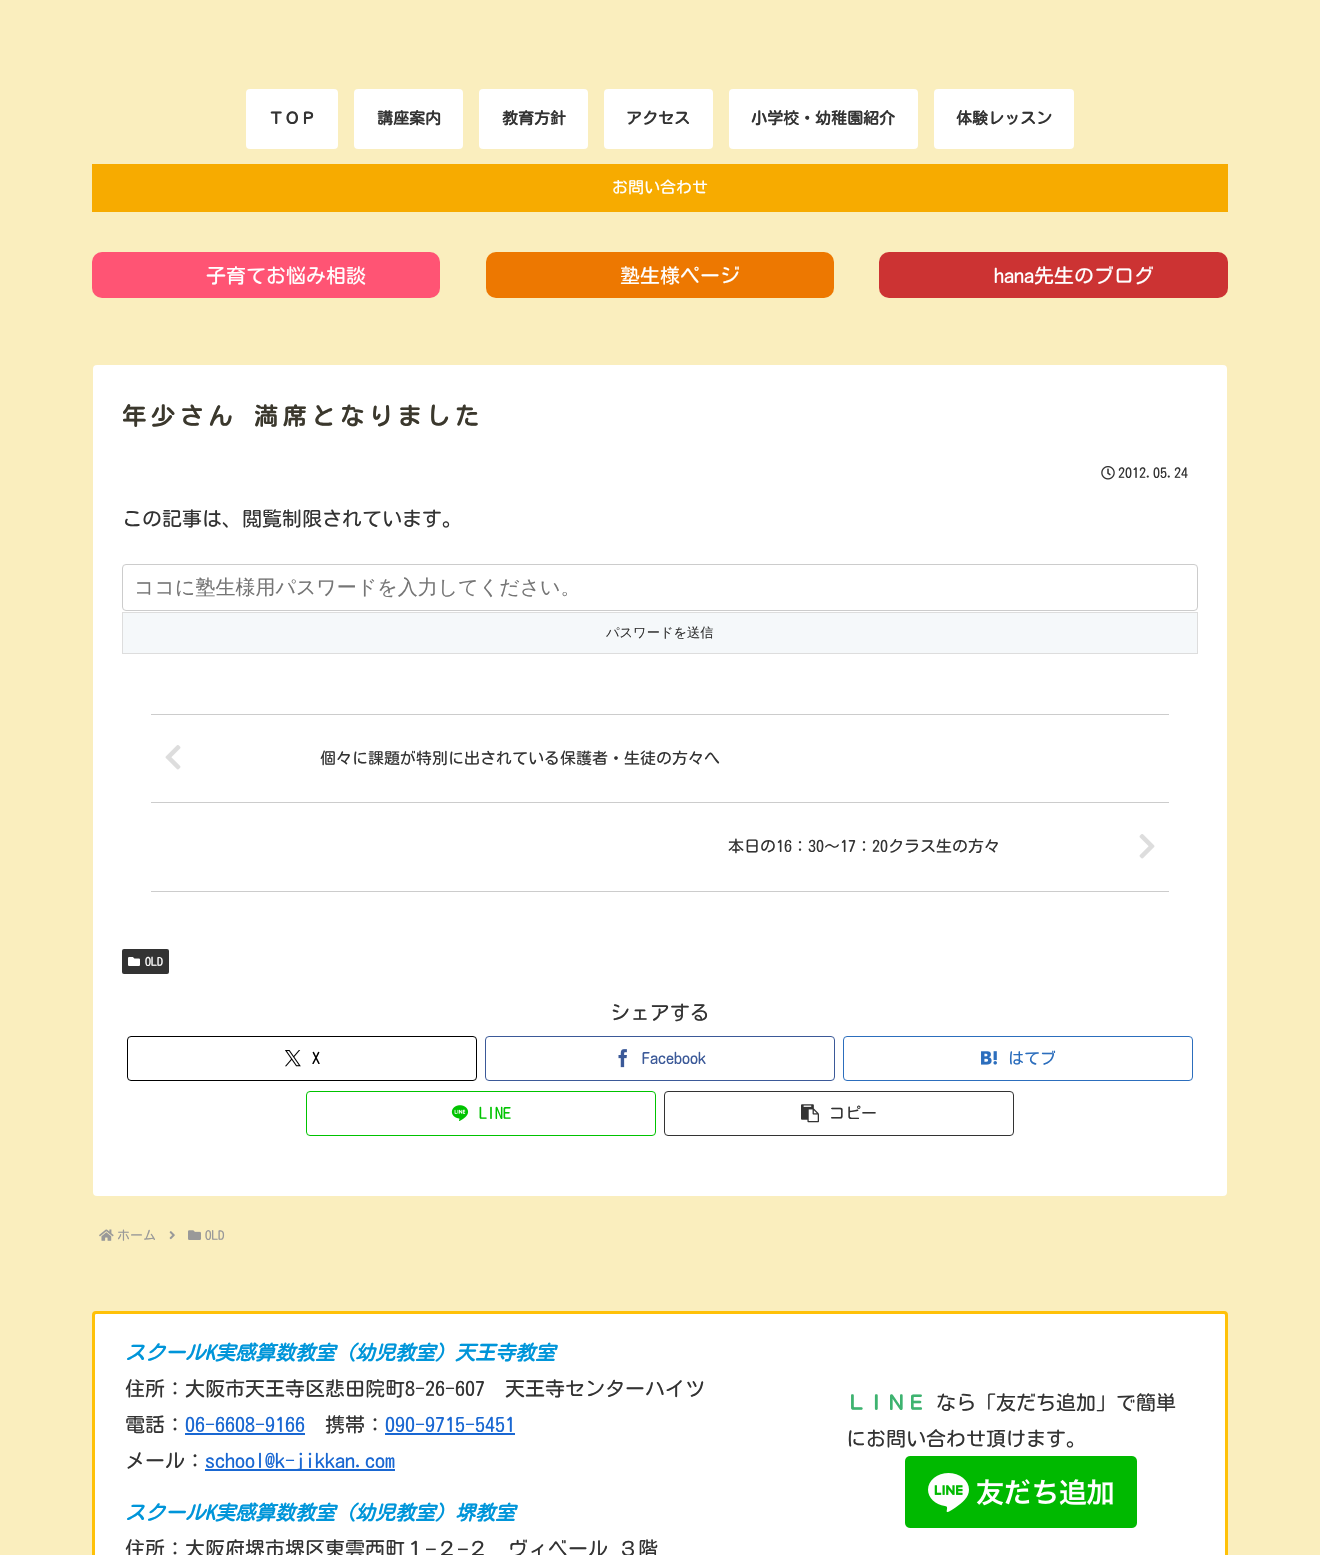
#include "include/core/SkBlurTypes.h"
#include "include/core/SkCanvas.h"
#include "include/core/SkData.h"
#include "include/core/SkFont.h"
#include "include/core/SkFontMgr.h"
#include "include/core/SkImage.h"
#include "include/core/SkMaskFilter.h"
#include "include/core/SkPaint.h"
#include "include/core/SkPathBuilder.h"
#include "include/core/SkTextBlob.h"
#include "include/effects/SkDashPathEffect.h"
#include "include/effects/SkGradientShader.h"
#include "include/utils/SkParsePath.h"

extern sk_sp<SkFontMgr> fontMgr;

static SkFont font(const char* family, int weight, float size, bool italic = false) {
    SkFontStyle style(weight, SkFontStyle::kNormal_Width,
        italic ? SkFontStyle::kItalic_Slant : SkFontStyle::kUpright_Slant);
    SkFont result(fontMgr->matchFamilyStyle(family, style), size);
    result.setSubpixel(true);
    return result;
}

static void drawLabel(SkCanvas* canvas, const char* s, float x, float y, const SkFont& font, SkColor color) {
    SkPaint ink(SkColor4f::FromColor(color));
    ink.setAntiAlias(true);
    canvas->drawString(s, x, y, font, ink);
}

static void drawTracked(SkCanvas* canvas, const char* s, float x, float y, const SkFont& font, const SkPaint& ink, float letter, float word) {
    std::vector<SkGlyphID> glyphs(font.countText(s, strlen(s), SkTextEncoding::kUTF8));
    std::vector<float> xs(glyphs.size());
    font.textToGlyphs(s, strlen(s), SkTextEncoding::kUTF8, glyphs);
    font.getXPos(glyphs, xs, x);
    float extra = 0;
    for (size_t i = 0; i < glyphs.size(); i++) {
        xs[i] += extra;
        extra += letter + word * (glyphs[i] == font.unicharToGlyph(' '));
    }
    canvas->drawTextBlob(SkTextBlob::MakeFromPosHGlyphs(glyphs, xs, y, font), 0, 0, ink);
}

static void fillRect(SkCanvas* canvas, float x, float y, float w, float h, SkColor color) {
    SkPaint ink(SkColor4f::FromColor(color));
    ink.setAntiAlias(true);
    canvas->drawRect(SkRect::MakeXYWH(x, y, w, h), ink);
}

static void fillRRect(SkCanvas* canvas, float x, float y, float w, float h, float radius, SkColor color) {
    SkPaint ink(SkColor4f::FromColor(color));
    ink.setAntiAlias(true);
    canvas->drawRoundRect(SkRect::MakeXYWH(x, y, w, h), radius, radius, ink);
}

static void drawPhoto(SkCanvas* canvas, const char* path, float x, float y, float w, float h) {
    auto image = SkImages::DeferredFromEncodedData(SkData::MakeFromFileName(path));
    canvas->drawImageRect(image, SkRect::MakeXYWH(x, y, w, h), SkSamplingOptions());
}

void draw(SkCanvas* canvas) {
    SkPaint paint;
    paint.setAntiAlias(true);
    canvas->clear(0xFFFAEEBE);
    fillRRect(canvas, 246, 89, 92, 60, 4, 0xFFFFFFFF);
    SkFont font1 = font("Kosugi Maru", 700, 16);
    drawLabel(canvas, "ＴＯＰ", 268, 124, font1, 0xFF333333);
    fillRRect(canvas, 354, 89, 109, 60, 4, 0xFFFFFFFF);
    drawLabel(canvas, "講座案内", 377, 124, font1, 0xFF333333);
    fillRRect(canvas, 479, 89, 109, 60, 4, 0xFFFFFFFF);
    drawLabel(canvas, "教育方針", 502, 124, font1, 0xFF333333);
    fillRRect(canvas, 604, 89, 109, 60, 4, 0xFFFFFFFF);
    drawLabel(canvas, "アクセス", 626, 124, font1, 0xFF333333);
    fillRRect(canvas, 729, 89, 189, 60, 4, 0xFFFFFFFF);
    drawLabel(canvas, "小学校・幼稚園紹介", 751, 124, font1, 0xFF333333);
    fillRRect(canvas, 934, 89, 140, 60, 4, 0xFFFFFFFF);
    drawLabel(canvas, "体験レッスン", 956, 124, font1, 0xFF333333);
    fillRect(canvas, 92, 164, 1136, 48, 0xFFF7AB00);
    SkFont font2 = font("Kosugi Maru", 400, 16);
    drawLabel(canvas, "お問い合わせ", 612, 193, font2, 0xFFFFFFFF);
    fillRRect(canvas, 92, 252, 348, 46, 10, 0xFFFF5474);
    SkFont font3 = font("Kosugi Maru", 400, 20);
    drawLabel(canvas, "子育てお悩み相談", 206, 283, font3, 0xFFFFFFFF);
    fillRRect(canvas, 486, 252, 348, 46, 10, 0xFFED7801);
    drawLabel(canvas, "塾生様ページ", 620, 283, font3, 0xFFFFFFFF);
    fillRRect(canvas, 879, 252, 349, 46, 10, 0xFFCC3333);
    drawLabel(canvas, "hana先生のブログ", 994, 283, font3, 0xFFFFFFFF);
    fillRRect(canvas, 93, 365, 1134, 831, 4, 0xFFFFFFFF);
    SkFont font4 = font("Kosugi Maru", 700, 24);
    paint.setColor(0xFF3B382D);
    drawTracked(canvas, "年少さん 満席となりました", 122, 425, font4, paint, 4.75f, 0);
    drawPhoto(canvas, "assets/img1.png", 1101, 466, 14, 14);
    SkFont font5 = font("Kosugi Maru", 400, 14);
    drawLabel(canvas, "2012.05.24", 1118, 478, font5, 0xFF333333);
    drawLabel(canvas, "この記事は、閲覧制限されています。", 122, 526, font3, 0xFF333333);
    paint.setStroke(true);
    paint.setStrokeWidth(1);
    paint.setColor(0xFFCCCCCC);
    canvas->drawRoundRect(SkRect::MakeXYWH(122.5f, 564.5f, 1075, 46), 3.5f, 3.5f, paint);
    SkFont font6 = font("WenQuanYi Zen Hei", 500, 20);
    drawLabel(canvas, "ココに塾生様用パスワードを入力してください。", 134, 594, font6, 0xFF757575);
    paint.setStroke(false);
    paint.setColor(0xFFF5F8FA);
    canvas->drawRect(SkRect::MakeXYWH(122.5f, 612.5f, 1075, 41), paint);
    paint.setStroke(true);
    paint.setColor(0xFFDDDDDD);
    canvas->drawRect(SkRect::MakeXYWH(122.5f, 612.5f, 1075, 41), paint);
    SkFont font7 = font("WenQuanYi Zen Hei", 500, 13.25f);
    drawLabel(canvas, "パスワードを送信", 606, 637, font7, 0xFF333333);
    fillRect(canvas, 151, 714, 1018, 1, 0xFFCCCCCC);
    fillRect(canvas, 151, 802, 1018, 1, 0xFFCCCCCC);
    drawPhoto(canvas, "assets/img2.png", 165, 745, 16, 25);
    drawLabel(canvas, "個々に課題が特別に出されている保護者・生徒の方々へ", 320, 764, font2, 0xFF333333);
    fillRect(canvas, 151, 891, 1018, 1, 0xFFCCCCCC);
    drawLabel(canvas, "本日の16：30～17：20クラス生の方々", 728, 852, font2, 0xFF333333);
    drawPhoto(canvas, "assets/img3.png", 1139, 834, 16, 25);
    fillRRect(canvas, 122, 949, 47, 25, 2, 0xFF333333);
    drawPhoto(canvas, "assets/img4.png", 128, 957, 12, 9);
    SkFont font8 = font("Kosugi Maru", 400, 12);
    drawLabel(canvas, "OLD", 145, 966, font8, 0xFFFFFFFF);
    drawLabel(canvas, "シェアする", 610, 1020, font3, 0xFF333333);
    paint.setColor(0xFF000000);
    canvas->drawRoundRect(SkRect::MakeXYWH(127.5f, 1036.5f, 349, 44), 3.5f, 3.5f, paint);
    drawPhoto(canvas, "assets/img5.png", 285, 1050, 16, 17);
    drawLabel(canvas, "X", 312, 1064, font2, 0xFF000000);
    paint.setColor(0xFF3B5998);
    canvas->drawRoundRect(SkRect::MakeXYWH(485.5f, 1036.5f, 349, 44), 3.5f, 3.5f, paint);
    drawPhoto(canvas, "assets/img6.png", 618, 1049, 9, 19);
    drawLabel(canvas, "Facebook", 642, 1064, font2, 0xFF3B5998);
    paint.setColor(0xFF2C6EBD);
    canvas->drawRoundRect(SkRect::MakeXYWH(843.5f, 1036.5f, 349, 44), 3.5f, 3.5f, paint);
    drawPhoto(canvas, "assets/img7.png", 981, 1051, 16, 14);
    drawLabel(canvas, "はてブ", 1008, 1064, font2, 0xFF2C6EBD);
    paint.setColor(0xFF00C300);
    canvas->drawRoundRect(SkRect::MakeXYWH(306.5f, 1091.5f, 349, 44), 3.5f, 3.5f, paint);
    drawPhoto(canvas, "assets/img8.png", 451, 1105, 18, 16);
    drawLabel(canvas, "LINE", 479, 1119, font2, 0xFF00C300);
    paint.setColor(0xFF333333);
    canvas->drawRoundRect(SkRect::MakeXYWH(664.5f, 1091.5f, 349, 44), 3.5f, 3.5f, paint);
    drawPhoto(canvas, "assets/img9.png", 801, 1104, 18, 19);
    drawLabel(canvas, "コピー", 829, 1119, font2, 0xFF333333);
    drawPhoto(canvas, "assets/img10.png", 99, 1229, 15, 12);
    SkFont font9 = font("Kosugi Maru", 400, 13);
    drawLabel(canvas, "ホーム", 117, 1240, font9, 0xFF999999);
    drawPhoto(canvas, "assets/img11.png", 169, 1231, 6, 9);
    drawPhoto(canvas, "assets/img12.png", 188, 1230, 13, 10);
    drawLabel(canvas, "OLD", 205, 1240, font9, 0xFF999999);
    fillRRect(canvas, 95, 1314, 1130, 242, 1, 0xFFFFFFFF);
    paint.setStrokeWidth(3);
    paint.setColor(0xFFFFC107);
    canvas->drawRoundRect(SkRect::MakeXYWH(93.5f, 1312.5f, 1133, 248), 2.5f, 2.5f, paint);
    SkFont font10 = font("Kosugi Maru", 700, 20, true);
    drawLabel(canvas, "スクールK実感算数教室（幼児教室）天王寺教室", 125, 1360, font10, 0xFF0095D9);
    drawLabel(canvas, "住所：大阪市天王寺区悲田院町8-26-607　天王寺センターハイツ", 125, 1396, font3, 0xFF333333);
    drawLabel(canvas, "電話：", 125, 1432, font3, 0xFF333333);
    drawLabel(canvas, "06-6608-9166", 185, 1432, font3, 0xFF1967D2);
    fillRect(canvas, 185, 1433, 120, 2, 0xFF1967D2);
    drawLabel(canvas, "携帯：", 325, 1432, font3, 0xFF333333);
    drawLabel(canvas, "090-9715-5451", 385, 1432, font3, 0xFF1967D2);
    fillRect(canvas, 385, 1433, 130, 2, 0xFF1967D2);
    drawLabel(canvas, "メール：", 125, 1468, font3, 0xFF333333);
    fillRect(canvas, 205, 1469, 190, 2, 0xFF1967D2);
    drawLabel(canvas, "school@k-jikkan.com", 205, 1468, font3, 0xFF1967D2);
    drawLabel(canvas, "スクールK実感算数教室（幼児教室）堺教室", 125, 1520, font10, 0xFF0095D9);
    drawLabel(canvas, "住所：大阪府堺市堺区東雲西町１", 125, 1556, font3, 0xFF333333);
    SkFont font11 = font("Liberation Sans", 400, 20);
    drawLabel(canvas, "−", 425, 1556, font11, 0xFF333333);
    drawLabel(canvas, "２", 437, 1556, font3, 0xFF333333);
    drawLabel(canvas, "−", 457, 1556, font11, 0xFF333333);
    drawLabel(canvas, "２　ヴィベール ３階", 468, 1556, font3, 0xFF333333);
    SkFont font12 = font("Kosugi Maru", 700, 20);
    drawLabel(canvas, "ＬＩＮＥ", 846, 1410, font12, 0xFF3EB370);
    drawLabel(canvas, "なら「友だち追加」で簡単", 936, 1410, font3, 0xFF333333);
    drawLabel(canvas, "にお問い合わせ頂けます。", 846, 1446, font3, 0xFF333333);
    drawPhoto(canvas, "assets/img13.png", 905, 1456, 232, 72);
}
